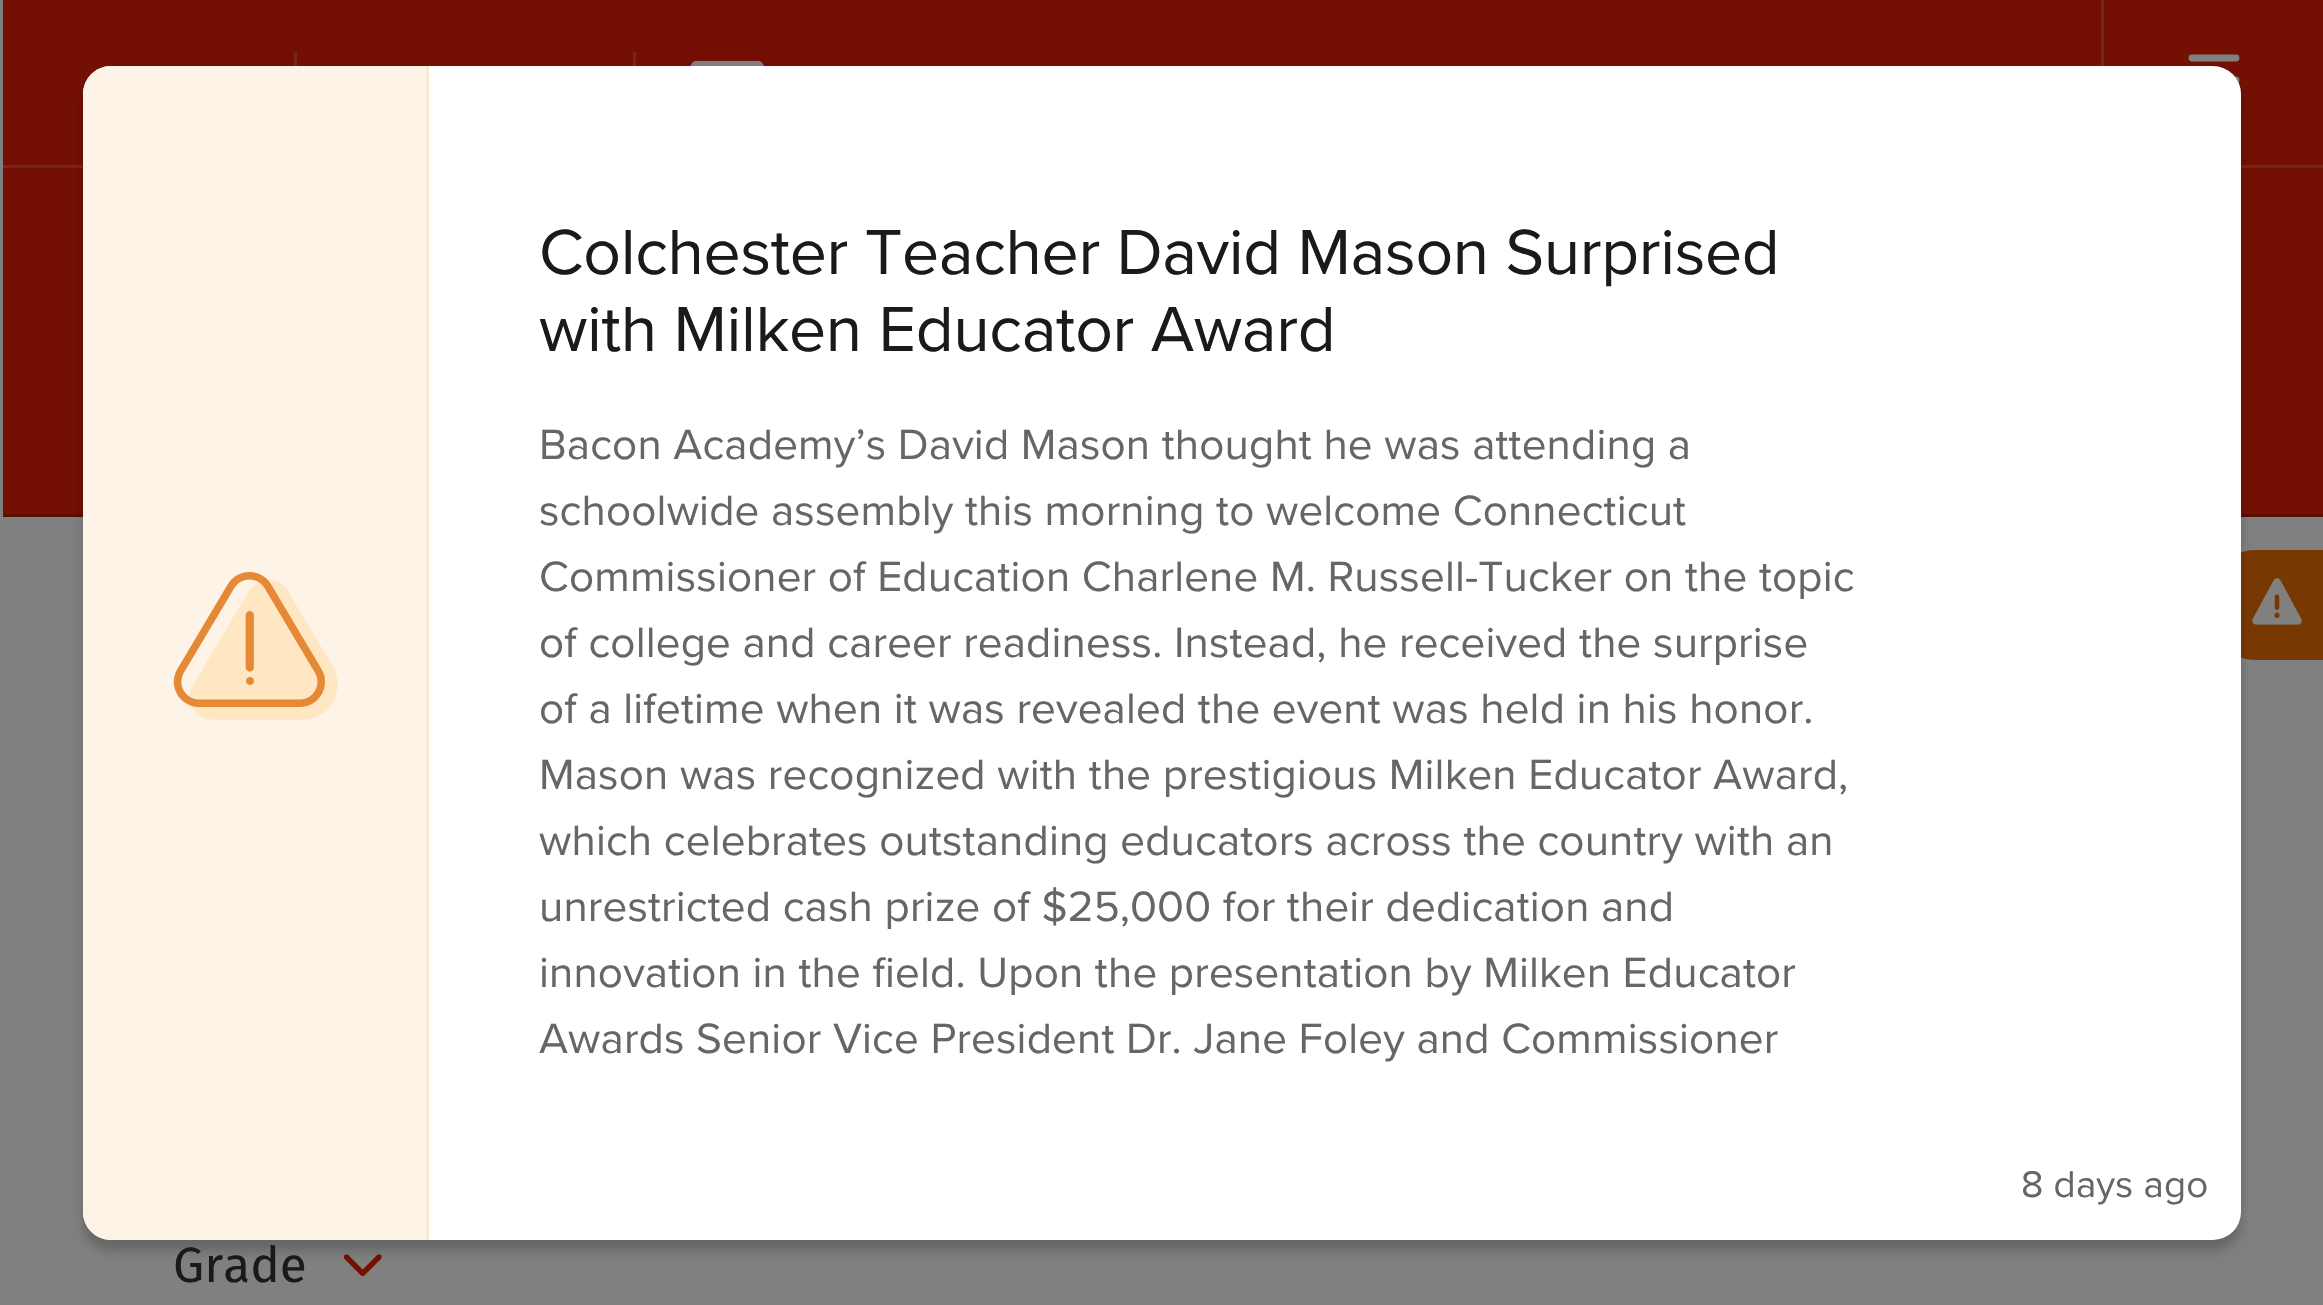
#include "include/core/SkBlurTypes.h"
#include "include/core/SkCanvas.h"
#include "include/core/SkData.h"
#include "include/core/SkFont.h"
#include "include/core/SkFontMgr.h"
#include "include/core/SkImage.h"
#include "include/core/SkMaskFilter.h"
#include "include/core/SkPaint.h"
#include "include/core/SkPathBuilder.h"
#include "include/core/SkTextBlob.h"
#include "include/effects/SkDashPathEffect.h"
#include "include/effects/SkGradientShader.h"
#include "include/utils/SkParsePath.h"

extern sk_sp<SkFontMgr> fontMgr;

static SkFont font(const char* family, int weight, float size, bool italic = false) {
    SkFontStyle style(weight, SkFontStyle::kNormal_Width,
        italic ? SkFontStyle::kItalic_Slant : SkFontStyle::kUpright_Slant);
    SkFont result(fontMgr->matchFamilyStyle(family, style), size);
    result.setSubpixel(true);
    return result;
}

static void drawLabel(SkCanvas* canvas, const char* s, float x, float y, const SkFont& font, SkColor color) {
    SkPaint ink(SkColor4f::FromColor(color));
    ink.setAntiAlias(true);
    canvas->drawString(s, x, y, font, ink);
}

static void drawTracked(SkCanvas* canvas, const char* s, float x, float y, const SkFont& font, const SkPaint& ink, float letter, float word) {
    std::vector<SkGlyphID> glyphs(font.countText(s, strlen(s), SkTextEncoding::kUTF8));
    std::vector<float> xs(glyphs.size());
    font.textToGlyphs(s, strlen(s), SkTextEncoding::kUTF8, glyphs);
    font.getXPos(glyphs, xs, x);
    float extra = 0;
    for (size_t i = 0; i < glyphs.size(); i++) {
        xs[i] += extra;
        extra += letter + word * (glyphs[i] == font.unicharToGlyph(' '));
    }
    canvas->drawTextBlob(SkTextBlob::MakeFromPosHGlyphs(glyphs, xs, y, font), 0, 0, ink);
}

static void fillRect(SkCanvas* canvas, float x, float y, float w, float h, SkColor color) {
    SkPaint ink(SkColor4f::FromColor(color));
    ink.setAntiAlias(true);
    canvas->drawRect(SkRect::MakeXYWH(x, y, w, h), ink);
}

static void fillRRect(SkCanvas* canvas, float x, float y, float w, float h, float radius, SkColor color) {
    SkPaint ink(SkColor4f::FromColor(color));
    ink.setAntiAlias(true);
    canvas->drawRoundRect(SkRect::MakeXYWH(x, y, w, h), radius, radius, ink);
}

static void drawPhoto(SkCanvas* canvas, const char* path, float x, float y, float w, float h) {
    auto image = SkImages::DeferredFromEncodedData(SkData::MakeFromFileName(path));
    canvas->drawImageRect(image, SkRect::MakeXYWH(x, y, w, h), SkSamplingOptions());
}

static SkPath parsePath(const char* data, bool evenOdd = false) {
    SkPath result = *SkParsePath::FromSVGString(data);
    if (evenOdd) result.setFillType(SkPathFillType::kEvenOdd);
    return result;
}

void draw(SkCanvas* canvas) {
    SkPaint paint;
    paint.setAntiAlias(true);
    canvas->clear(0xFF808080);
    fillRect(canvas, 3, 0, 2320, 514, 0xFF731003);
    fillRect(canvas, 3, 165, 2320, 3, 0xFF76261C);
    fillRect(canvas, 294, 52, 3, 14, 0xFF76261C);
    fillRect(canvas, 633, 52, 3, 14, 0xFF76261C);
    drawPhoto(canvas, "assets/img1.png", 690, 61, 74, 5);
    fillRect(canvas, 2101, 0, 3, 66, 0xFF76261C);
    paint.setStroke(true);
    paint.setStrokeWidth(6.9f);
    paint.setStrokeCap(SkPaint::kRound_Cap);
    paint.setColor(0xFF808080);
    canvas->drawPath(parsePath("M2192 58H2236M2192 80H2236"), paint);
    fillRect(canvas, 3, 514, 2320, 3, 0xFF5C0D02);
    paint.setStroke(false);
    paint.setColor(0xFF783801);
    canvas->drawPath(parsePath("M2255 550H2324V660H2255C2232.5 660 2214 641.5 2214 619V591C2214 568.5 2232.5 550 2255 550Z"), paint);
    drawPhoto(canvas, "assets/img3.png", 2252, 578, 50, 47);
    drawPhoto(canvas, "assets/img4.png", 343, 1254, 39, 22);
    paint.setColor(0x33000000);
    paint.setMaskFilter(SkMaskFilter::MakeBlur(kNormal_SkBlurStyle, 5.5f));
    canvas->drawRoundRect(SkRect::MakeXYWH(83, 77, 2158, 1174), 28, 28, paint);
    paint.setMaskFilter(nullptr);
    fillRRect(canvas, 83, 66, 2158, 1174, 28, 0xFFFFFFFF);
    paint.setColor(0xFFFDF4E7);
    canvas->drawPath(parsePath("M111 66H429V1240H111C95.5 1240 83 1227.5 83 1212V94C83 78.5 95.5 66 111 66Z"), paint);
    fillRect(canvas, 426, 66, 3, 1174, 0xFFFCEACF);
    drawPhoto(canvas, "assets/img2.png", 173, 572, 165, 148);
    SkFont font1 = font("Proxima Nova", 400, 66);
    paint.setColor(0xFF1A1A1A);
    drawTracked(canvas, "Colchester Teacher David Mason Surprised", 539, 274, font1, paint, -0.35f, 0);
    drawTracked(canvas, "with Milken Educator Award", 539, 351, font1, paint, -0.35f, 0);
    SkFont font2 = font("Proxima Nova", 400, 44);
    paint.setColor(0xFF666666);
    drawTracked(canvas, "Bacon Academy’s David Mason thought he was attending a", 539, 459, font2, paint, 0.15f, 0);
    drawTracked(canvas, "schoolwide assembly this morning to welcome Connecticut", 539, 525, font2, paint, 0.15f, 0);
    drawTracked(canvas, "Commissioner of Education Charlene M. Russell-Tucker on the topic", 539, 591, font2, paint, 0.15f, 0);
    drawTracked(canvas, "of college and career readiness. Instead, he received the surprise", 539, 657, font2, paint, 0.15f, 0);
    drawTracked(canvas, "of a lifetime when it was revealed the event was held in his honor.", 539, 723, font2, paint, 0.15f, 0);
    drawTracked(canvas, "Mason was recognized with the prestigious Milken Educator Award,", 539, 789, font2, paint, 0.15f, 0);
    drawTracked(canvas, "which celebrates outstanding educators across the country with an", 539, 855, font2, paint, 0.15f, 0);
    drawTracked(canvas, "unrestricted cash prize of $25,000 for their dedication and", 539, 921, font2, paint, 0.15f, 0);
    drawTracked(canvas, "innovation in the field. Upon the presentation by Milken Educator", 539, 987, font2, paint, 0.15f, 0);
    drawTracked(canvas, "Awards Senior Vice President Dr. Jane Foley and Commissioner", 539, 1053, font2, paint, 0.15f, 0);
    SkFont font3 = font("Proxima Nova", 400, 38.5f);
    drawTracked(canvas, "8 days ago", 2021, 1197, font3, paint, 0.15f, 0);
    SkFont font4 = font("Fira Sans", 400, 49.5f);
    drawLabel(canvas, "Grade", 173, 1282, font4, 0xFF1A1A1A);
}
